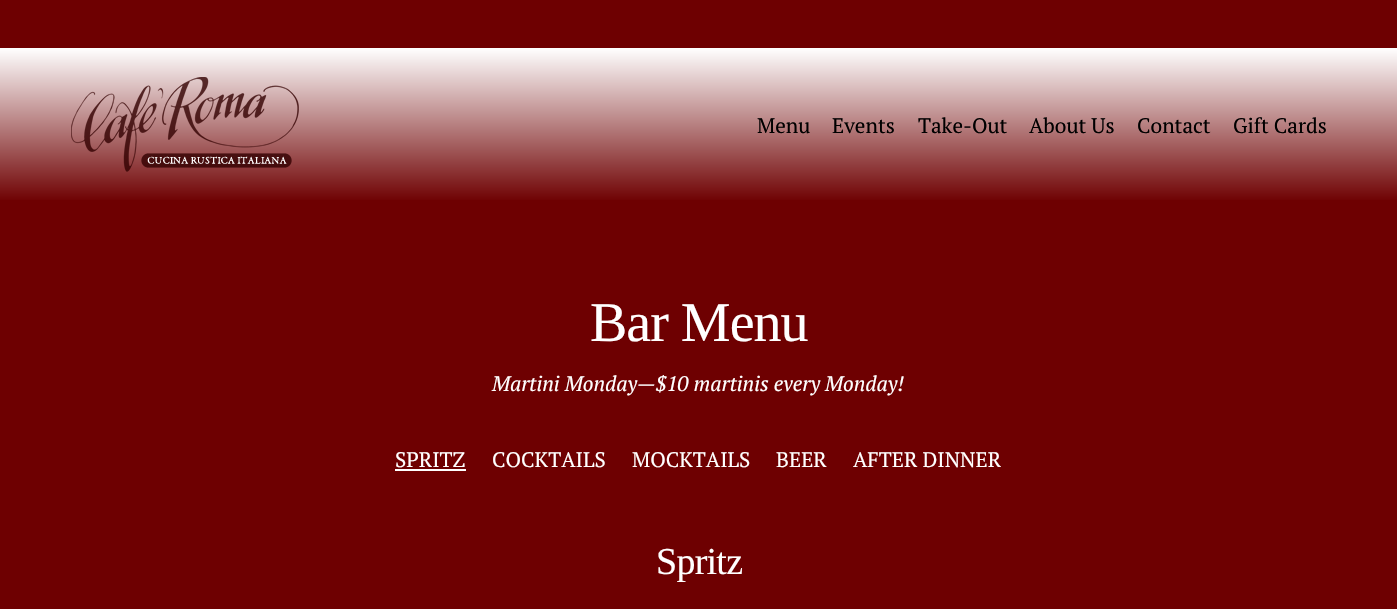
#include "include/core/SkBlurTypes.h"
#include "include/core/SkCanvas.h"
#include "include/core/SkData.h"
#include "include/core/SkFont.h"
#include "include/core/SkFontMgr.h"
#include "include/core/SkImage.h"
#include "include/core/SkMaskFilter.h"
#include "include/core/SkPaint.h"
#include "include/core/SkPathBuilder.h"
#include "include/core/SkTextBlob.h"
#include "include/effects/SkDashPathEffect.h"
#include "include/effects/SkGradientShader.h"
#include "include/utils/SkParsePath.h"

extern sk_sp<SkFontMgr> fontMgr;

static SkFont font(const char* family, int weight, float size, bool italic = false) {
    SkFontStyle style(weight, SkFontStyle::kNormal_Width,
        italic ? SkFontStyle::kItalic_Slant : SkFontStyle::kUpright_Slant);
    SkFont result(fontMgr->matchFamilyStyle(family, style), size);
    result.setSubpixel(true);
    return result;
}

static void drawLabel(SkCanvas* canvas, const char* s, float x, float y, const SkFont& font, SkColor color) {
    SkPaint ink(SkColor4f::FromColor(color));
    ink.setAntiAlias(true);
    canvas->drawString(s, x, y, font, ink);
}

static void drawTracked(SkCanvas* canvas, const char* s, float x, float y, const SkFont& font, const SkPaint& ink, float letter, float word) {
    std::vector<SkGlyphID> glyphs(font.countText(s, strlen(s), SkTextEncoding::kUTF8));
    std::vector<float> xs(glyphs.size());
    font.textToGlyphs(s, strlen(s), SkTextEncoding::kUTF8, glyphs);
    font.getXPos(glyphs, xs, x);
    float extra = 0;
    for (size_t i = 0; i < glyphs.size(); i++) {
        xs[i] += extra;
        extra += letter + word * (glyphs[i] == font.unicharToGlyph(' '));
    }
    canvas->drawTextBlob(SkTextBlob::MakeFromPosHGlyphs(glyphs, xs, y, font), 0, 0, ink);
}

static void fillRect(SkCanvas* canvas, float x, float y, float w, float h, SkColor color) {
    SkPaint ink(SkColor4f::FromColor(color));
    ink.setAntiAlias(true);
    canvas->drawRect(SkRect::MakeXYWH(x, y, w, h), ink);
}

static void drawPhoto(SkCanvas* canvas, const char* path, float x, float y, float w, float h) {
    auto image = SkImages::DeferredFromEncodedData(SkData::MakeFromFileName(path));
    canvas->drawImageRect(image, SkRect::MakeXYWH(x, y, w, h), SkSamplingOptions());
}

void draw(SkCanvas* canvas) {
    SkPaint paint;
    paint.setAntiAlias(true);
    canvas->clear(0xFF6E0001);
    {
        const SkColor colors[] = {0xFFFFFFFF, 0xFF6E0001};
        const float stops[] = {0, 1};
        const SkPoint ends[] = {{699, 48}, {699, 202}};
        paint.setShader(SkGradientShader::MakeLinear(ends, colors, stops, 2, SkTileMode::kClamp));
        paint.setAlpha(255);
    }
    canvas->drawRect(SkRect::MakeXYWH(0, 48, 1397, 152), paint);
    drawPhoto(canvas, "assets/img1.png", 71, 77, 228, 95);
    SkFont font1 = font("PT Serif", 400, 21);
    drawLabel(canvas, "Menu", 757, 133, font1, 0xFF000000);
    drawLabel(canvas, "Events", 832, 133, font1, 0xFF000000);
    drawLabel(canvas, "Take-Out", 918, 133, font1, 0xFF000000);
    drawLabel(canvas, "About Us", 1029, 133, font1, 0xFF000000);
    drawLabel(canvas, "Contact", 1137, 133, font1, 0xFF000000);
    drawLabel(canvas, "Gift Cards", 1233, 133, font1, 0xFF000000);
    SkFont font2 = font("Liberation Serif", 400, 56);
    paint.setShader(nullptr);
    paint.setColor(0xFFFFFFFF);
    drawTracked(canvas, "Bar Menu", 590, 341, font2, paint, -1, 0);
    SkFont font3 = font("PT Serif", 400, 21, true);
    drawLabel(canvas, "Martini Monday—$10 martinis every Monday!", 492, 391, font3, 0xFFFFFFFF);
    drawLabel(canvas, "SPRITZ", 395, 467, font1, 0xFFFFFFFF);
    fillRect(canvas, 395, 469, 71, 2, 0xFFFFFFFF);
    drawLabel(canvas, "COCKTAILS", 492, 467, font1, 0xFFFFFFFF);
    drawLabel(canvas, "MOCKTAILS", 632, 467, font1, 0xFFFFFFFF);
    drawLabel(canvas, "BEER", 776, 467, font1, 0xFFFFFFFF);
    drawLabel(canvas, "AFTER DINNER", 853, 467, font1, 0xFFFFFFFF);
    SkFont font4 = font("Liberation Serif", 400, 38);
    drawTracked(canvas, "Spritz", 656, 574, font4, paint, -0.75f, 0);
}
